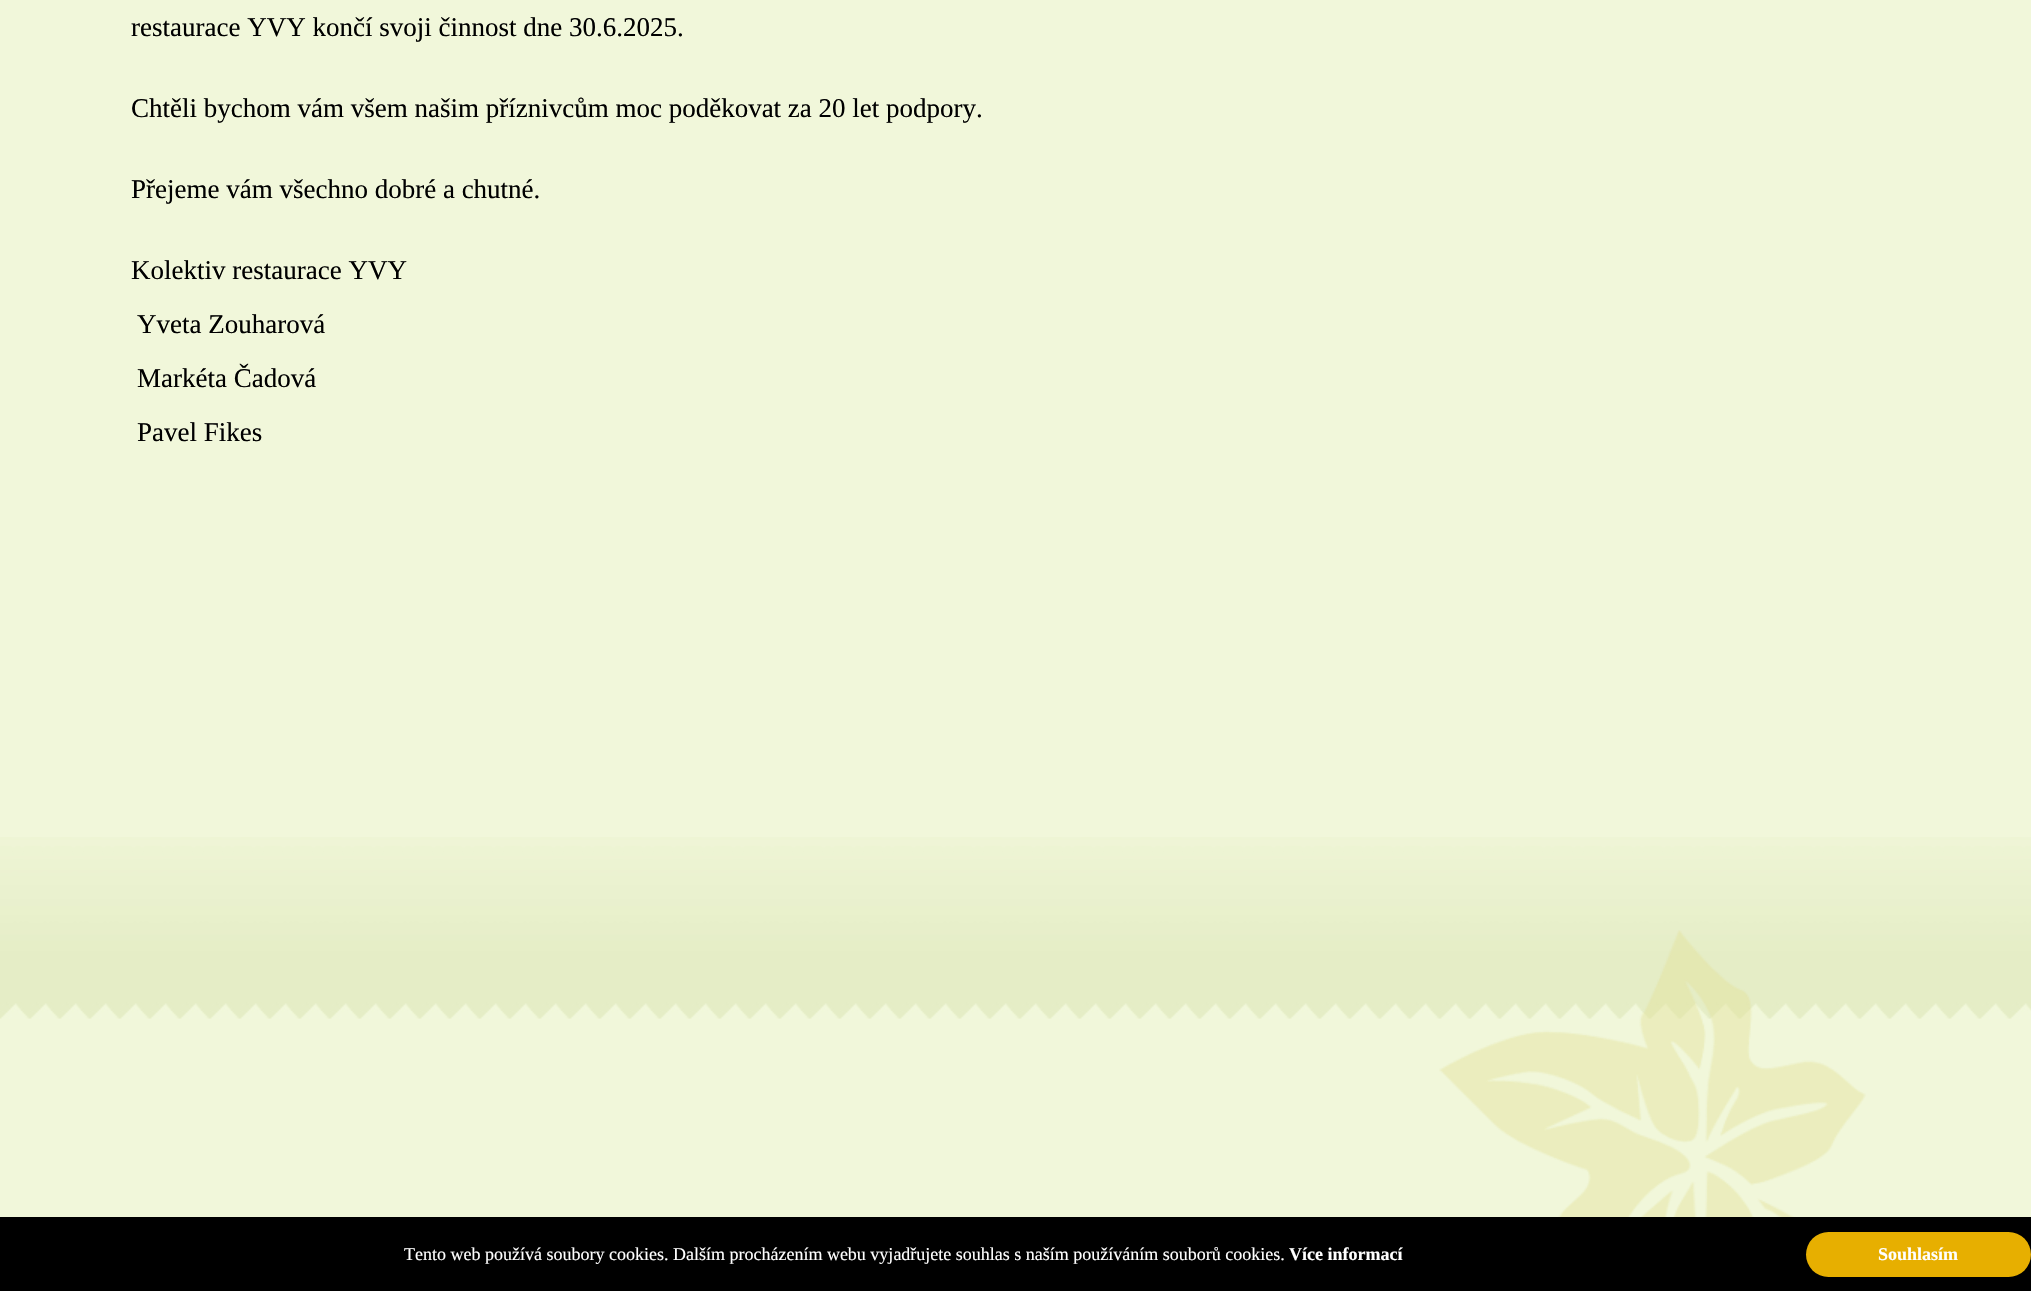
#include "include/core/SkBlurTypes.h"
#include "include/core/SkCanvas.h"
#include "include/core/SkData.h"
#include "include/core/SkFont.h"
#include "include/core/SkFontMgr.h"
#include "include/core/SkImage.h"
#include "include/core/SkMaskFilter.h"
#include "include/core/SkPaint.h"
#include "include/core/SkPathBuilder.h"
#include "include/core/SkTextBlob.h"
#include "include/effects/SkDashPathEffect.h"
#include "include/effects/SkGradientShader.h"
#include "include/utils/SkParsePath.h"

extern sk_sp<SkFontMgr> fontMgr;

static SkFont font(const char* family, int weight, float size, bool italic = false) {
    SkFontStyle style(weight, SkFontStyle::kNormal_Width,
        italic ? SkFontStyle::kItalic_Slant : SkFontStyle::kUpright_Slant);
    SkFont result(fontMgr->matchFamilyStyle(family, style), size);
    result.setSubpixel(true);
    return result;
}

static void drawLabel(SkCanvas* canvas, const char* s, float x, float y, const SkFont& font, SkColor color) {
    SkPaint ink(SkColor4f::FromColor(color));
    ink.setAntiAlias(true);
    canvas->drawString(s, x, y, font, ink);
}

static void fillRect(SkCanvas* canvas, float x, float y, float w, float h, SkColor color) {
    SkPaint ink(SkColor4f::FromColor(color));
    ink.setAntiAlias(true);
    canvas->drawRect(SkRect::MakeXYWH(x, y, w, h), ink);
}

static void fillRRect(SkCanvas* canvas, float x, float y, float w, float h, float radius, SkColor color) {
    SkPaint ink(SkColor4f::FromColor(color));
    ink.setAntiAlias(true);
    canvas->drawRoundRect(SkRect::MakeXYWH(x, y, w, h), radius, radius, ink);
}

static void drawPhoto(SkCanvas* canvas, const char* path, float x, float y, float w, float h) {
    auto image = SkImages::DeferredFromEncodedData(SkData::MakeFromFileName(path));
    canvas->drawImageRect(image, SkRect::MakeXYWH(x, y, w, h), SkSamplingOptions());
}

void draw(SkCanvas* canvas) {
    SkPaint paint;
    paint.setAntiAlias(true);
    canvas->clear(0xFFF1F7DA);
    drawPhoto(canvas, "assets/img1.png", 0, 914, 2031, 105);
    drawPhoto(canvas, "assets/img2.png", 0, 837, 2031, 77);
    drawPhoto(canvas, "assets/img3.png", 1439, 930, 427, 287);
    SkFont font1 = font("Liberation Serif", 400, 27);
    drawLabel(canvas, "restaurace YVY končí svoji činnost dne 30.6.2025.", 131, 36, font1, 0xFF000000);
    drawLabel(canvas, "Chtěli bychom vám všem našim příznivcům moc poděkovat za 20 let podpory.", 131, 117, font1, 0xFF000000);
    drawLabel(canvas, "Přejeme vám všechno dobré a chutné.", 131, 198, font1, 0xFF000000);
    drawLabel(canvas, "Kolektiv restaurace YVY", 131, 279, font1, 0xFF000000);
    drawLabel(canvas, "Yveta Zouharová", 137, 333, font1, 0xFF000000);
    drawLabel(canvas, "Markéta Čadová", 137, 387, font1, 0xFF000000);
    drawLabel(canvas, "Pavel Fikes", 137, 441, font1, 0xFF000000);
    fillRect(canvas, 0, 1217, 2031, 74, 0xFF000000);
    SkFont font2 = font("Liberation Serif", 400, 18);
    drawLabel(canvas, "Tento web používá soubory cookies. Dalším procházením webu vyjadřujete souhlas s naším používáním souborů cookies.", 404, 1260, font2, 0xFFFFFFFF);
    SkFont font3 = font("Liberation Serif", 700, 18);
    drawLabel(canvas, "Více informací", 1289, 1260, font3, 0xFFFFFFFF);
    fillRRect(canvas, 1806, 1232, 225, 45, 22.5f, 0xFFE7AF00);
    drawLabel(canvas, "Souhlasím", 1878, 1260, font3, 0xFFFFFFFF);
}
